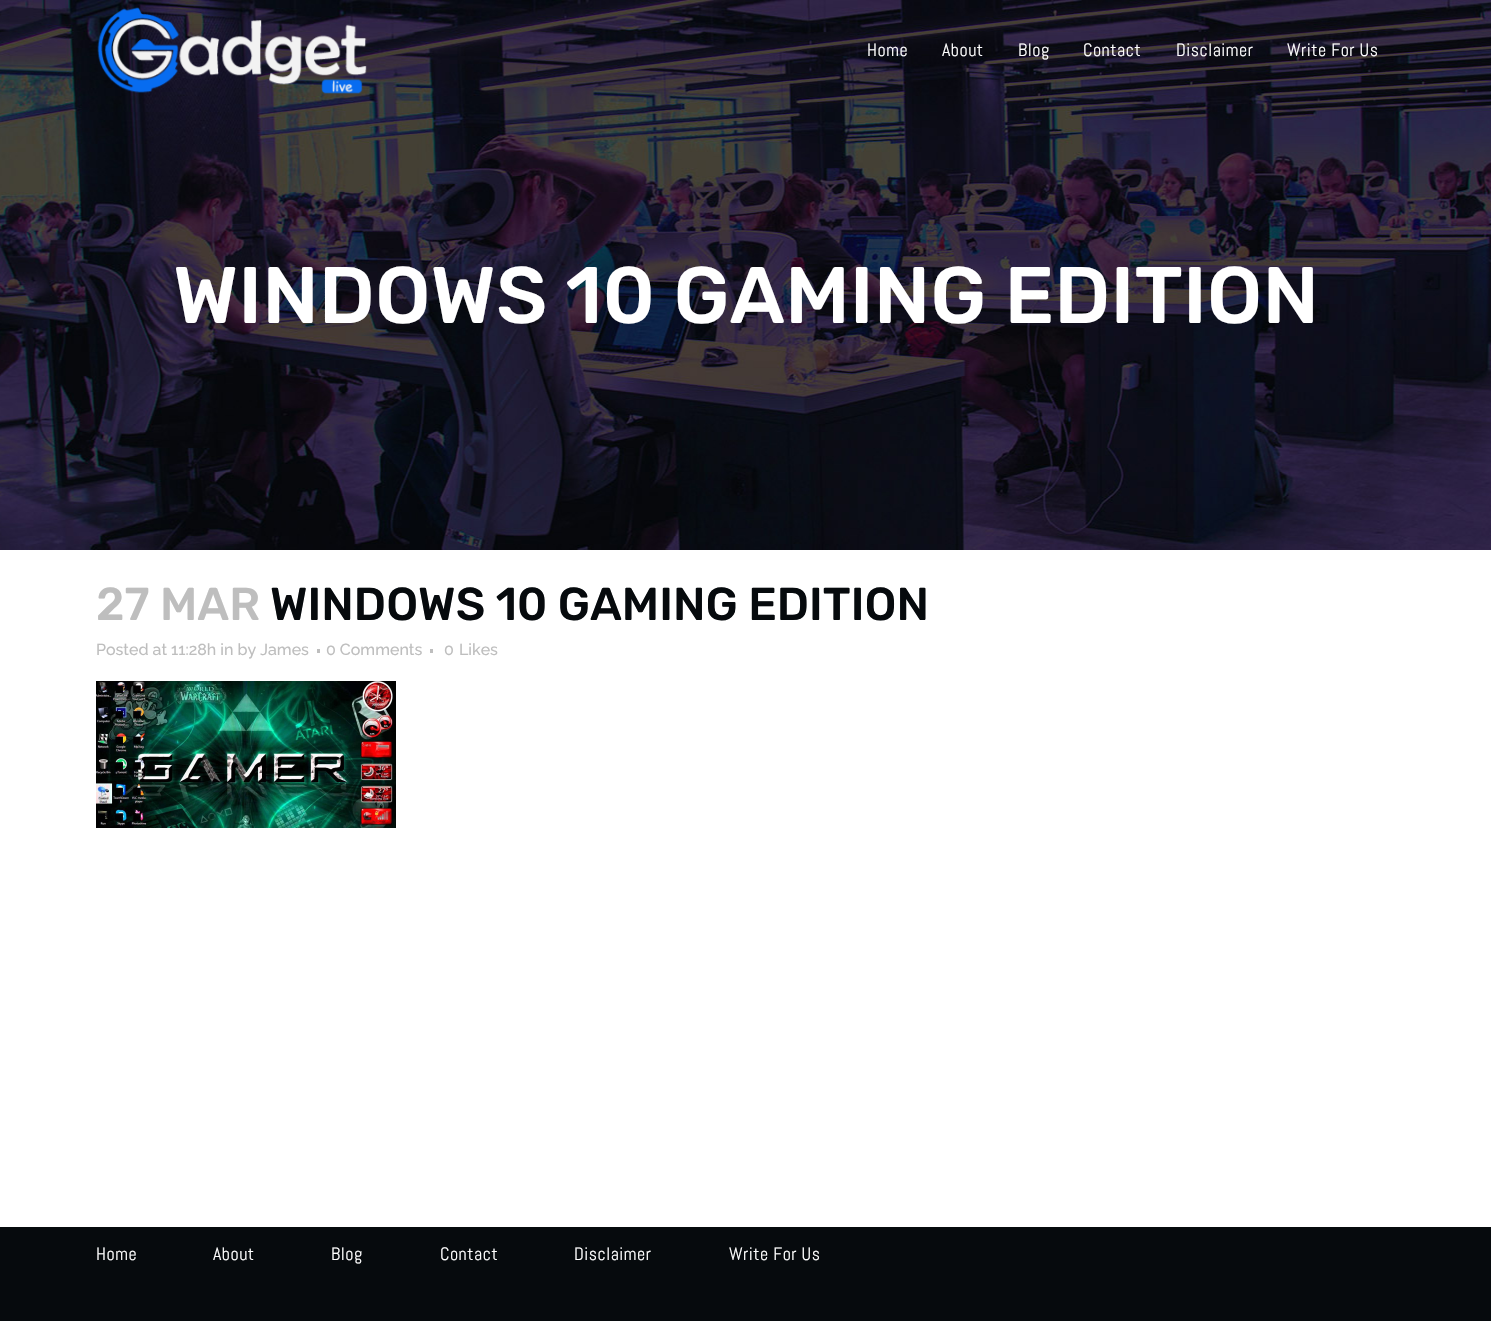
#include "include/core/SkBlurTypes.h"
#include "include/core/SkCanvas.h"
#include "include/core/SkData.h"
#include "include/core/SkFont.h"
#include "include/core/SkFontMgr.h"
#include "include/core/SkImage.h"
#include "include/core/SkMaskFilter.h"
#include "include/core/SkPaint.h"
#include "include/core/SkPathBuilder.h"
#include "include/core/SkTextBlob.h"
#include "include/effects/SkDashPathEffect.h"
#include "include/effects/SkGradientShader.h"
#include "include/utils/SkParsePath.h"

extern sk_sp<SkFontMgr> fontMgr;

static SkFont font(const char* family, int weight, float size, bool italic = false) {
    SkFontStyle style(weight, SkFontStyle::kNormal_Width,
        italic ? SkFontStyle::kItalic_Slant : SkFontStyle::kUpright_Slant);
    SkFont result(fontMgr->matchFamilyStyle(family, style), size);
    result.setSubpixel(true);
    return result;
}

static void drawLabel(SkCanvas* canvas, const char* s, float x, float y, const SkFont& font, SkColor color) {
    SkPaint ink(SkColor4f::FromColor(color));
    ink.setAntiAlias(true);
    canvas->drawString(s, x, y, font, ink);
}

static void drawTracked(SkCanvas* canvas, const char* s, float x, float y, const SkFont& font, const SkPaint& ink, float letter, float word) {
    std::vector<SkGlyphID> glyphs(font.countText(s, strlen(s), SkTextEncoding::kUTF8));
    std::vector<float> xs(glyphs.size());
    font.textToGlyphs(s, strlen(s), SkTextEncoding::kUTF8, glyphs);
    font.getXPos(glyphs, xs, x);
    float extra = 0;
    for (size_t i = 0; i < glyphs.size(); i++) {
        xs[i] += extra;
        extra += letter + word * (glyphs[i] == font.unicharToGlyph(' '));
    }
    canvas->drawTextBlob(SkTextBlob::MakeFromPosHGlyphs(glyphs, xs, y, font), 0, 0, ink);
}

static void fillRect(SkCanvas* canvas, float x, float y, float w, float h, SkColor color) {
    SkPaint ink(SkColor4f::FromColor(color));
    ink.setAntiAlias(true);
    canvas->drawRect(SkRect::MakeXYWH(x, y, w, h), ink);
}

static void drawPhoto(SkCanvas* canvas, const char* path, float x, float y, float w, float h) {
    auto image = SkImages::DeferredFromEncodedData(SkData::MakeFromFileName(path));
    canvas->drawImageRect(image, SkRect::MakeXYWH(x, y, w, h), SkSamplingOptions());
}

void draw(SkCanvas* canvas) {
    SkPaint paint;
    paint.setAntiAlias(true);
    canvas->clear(0xFFFFFFFF);
    drawPhoto(canvas, "assets/img2.png", 0, 0, 1491, 550);
    drawPhoto(canvas, "assets/img1.png", 97, 7, 270, 87);
    SkFont font1 = font("Abel", 400, 18);
    paint.setColor(0xFFFFFFFF);
    drawTracked(canvas, "Home", 867, 56, font1, paint, 0.5f, 0);
    drawTracked(canvas, "About", 942, 56, font1, paint, 0.5f, 0);
    drawTracked(canvas, "Blog", 1018, 56, font1, paint, 0.5f, 0);
    drawTracked(canvas, "Contact", 1083, 56, font1, paint, 0.5f, 0);
    drawTracked(canvas, "Disclaimer", 1176, 56, font1, paint, 0.5f, 0);
    drawTracked(canvas, "Write For Us", 1287, 56, font1, paint, 0.5f, 0);
    SkFont font2 = font("Rubik", 500, 80);
    drawLabel(canvas, "WINDOWS 10 GAMING EDITION", 173, 323, font2, 0xFFFFFFFF);
    SkFont font3 = font("Rubik", 500, 46);
    drawLabel(canvas, "27 MAR", 96, 620, font3, 0xFFBEBEBE);
    drawLabel(canvas, "WINDOWS 10 GAMING EDITION", 270, 620, font3, 0xFF060A0D);
    SkFont font4 = font("Raleway", 500, 16);
    drawLabel(canvas, "Posted at 11:28h in by James", 96, 655, font4, 0xFFBEBEBE);
    fillRect(canvas, 317, 649, 3, 4, 0xFFBEBEBE);
    drawLabel(canvas, "0 Comments", 326, 655, font4, 0xFFBEBEBE);
    fillRect(canvas, 430, 649, 3, 4, 0xFFBEBEBE);
    drawLabel(canvas, "0", 444, 655, font4, 0xFFBEBEBE);
    drawLabel(canvas, "Likes", 459, 655, font4, 0xFFBEBEBE);
    drawPhoto(canvas, "assets/img3.png", 96, 681, 300, 147);
    fillRect(canvas, 0, 1227, 1491, 94, 0xFF060A0D);
    drawTracked(canvas, "Home", 96, 1260, font1, paint, 0.5f, 0);
    drawTracked(canvas, "About", 213, 1260, font1, paint, 0.5f, 0);
    drawTracked(canvas, "Blog", 331, 1260, font1, paint, 0.5f, 0);
    drawTracked(canvas, "Contact", 440, 1260, font1, paint, 0.5f, 0);
    drawTracked(canvas, "Disclaimer", 574, 1260, font1, paint, 0.5f, 0);
    drawTracked(canvas, "Write For Us", 729, 1260, font1, paint, 0.5f, 0);
}
